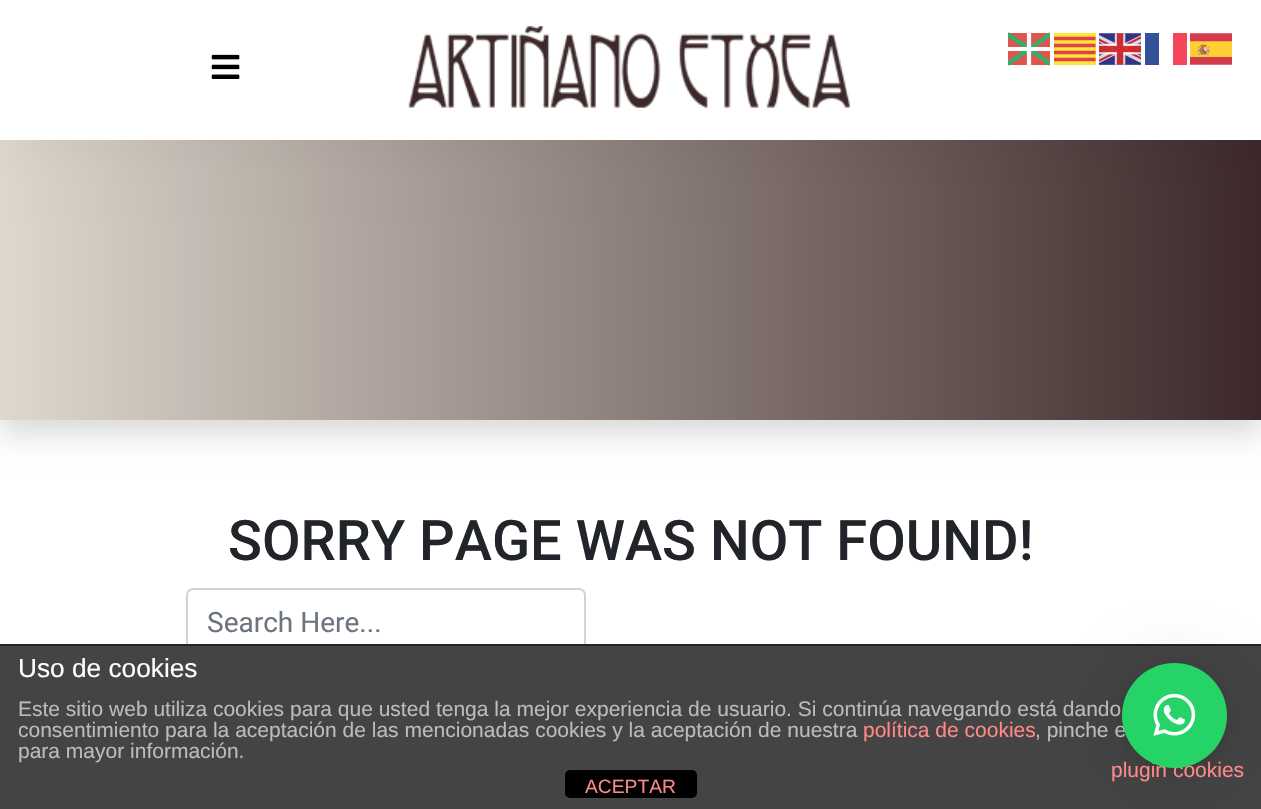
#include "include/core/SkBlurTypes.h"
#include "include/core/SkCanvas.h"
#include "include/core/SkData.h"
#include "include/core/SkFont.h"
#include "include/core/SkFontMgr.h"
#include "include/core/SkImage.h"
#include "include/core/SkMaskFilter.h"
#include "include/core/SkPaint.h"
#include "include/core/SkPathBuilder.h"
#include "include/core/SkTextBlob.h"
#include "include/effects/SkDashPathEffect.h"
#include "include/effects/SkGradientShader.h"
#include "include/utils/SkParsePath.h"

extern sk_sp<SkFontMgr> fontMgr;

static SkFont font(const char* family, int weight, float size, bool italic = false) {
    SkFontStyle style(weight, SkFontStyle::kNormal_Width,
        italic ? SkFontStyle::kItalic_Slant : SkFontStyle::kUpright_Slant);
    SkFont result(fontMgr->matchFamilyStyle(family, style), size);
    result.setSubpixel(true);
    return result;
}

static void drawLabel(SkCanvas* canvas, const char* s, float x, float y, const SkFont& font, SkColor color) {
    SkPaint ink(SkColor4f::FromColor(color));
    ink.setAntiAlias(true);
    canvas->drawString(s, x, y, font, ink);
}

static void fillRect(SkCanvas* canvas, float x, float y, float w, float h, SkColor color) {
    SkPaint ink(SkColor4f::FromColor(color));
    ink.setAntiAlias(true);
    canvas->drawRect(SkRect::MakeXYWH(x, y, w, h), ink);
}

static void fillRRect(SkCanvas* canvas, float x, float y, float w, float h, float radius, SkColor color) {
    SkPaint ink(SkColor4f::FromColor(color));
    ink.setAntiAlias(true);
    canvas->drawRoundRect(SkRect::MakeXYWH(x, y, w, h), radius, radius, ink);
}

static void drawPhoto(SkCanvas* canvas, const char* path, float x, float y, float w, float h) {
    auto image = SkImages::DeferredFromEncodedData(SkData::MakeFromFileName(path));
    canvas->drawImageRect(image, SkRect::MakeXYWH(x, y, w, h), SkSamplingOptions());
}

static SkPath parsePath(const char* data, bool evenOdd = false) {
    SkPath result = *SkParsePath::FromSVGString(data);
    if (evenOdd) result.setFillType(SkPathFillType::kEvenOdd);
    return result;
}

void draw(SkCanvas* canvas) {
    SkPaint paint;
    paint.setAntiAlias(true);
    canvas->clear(0xFFFFFFFF);
    paint.setColor(0x26000000);
    paint.setMaskFilter(SkMaskFilter::MakeBlur(kNormal_SkBlurStyle, 14));
    canvas->drawRect(SkRect::MakeXYWH(0, 154, 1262, 280), paint);
    paint.setMaskFilter(nullptr);
    {
        const SkColor colors[] = {0xFFDED8CE, 0xFF3C2829};
        const float stops[] = {0, 1};
        const SkPoint ends[] = {{0, 280}, {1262, 280}};
        paint.setShader(SkGradientShader::MakeLinear(ends, colors, stops, 2, SkTileMode::kClamp));
        paint.setAlpha(255);
    }
    canvas->drawRect(SkRect::MakeXYWH(0, 140, 1261, 280), paint);
    paint.setShader(nullptr);
    paint.setColor(0x0A000000);
    paint.setMaskFilter(SkMaskFilter::MakeBlur(kNormal_SkBlurStyle, 22));
    canvas->drawRect(SkRect::MakeXYWH(0, 14, 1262, 140), paint);
    paint.setMaskFilter(nullptr);
    fillRect(canvas, 0, 0, 1261, 140, 0xFFFFFFFF);
    drawPhoto(canvas, "assets/img1.png", 211, 54, 29, 25);
    drawPhoto(canvas, "assets/img2.png", 408, 26, 442, 82);
    fillRect(canvas, 1008, 33, 42, 32, 0xFFDD554B);
    canvas->save();
    canvas->clipRect(SkRect::MakeXYWH(1008, 28, 42, 42));
    paint.setStroke(true);
    paint.setStrokeWidth(4.2f);
    paint.setColor(0xFF33AF6D);
    canvas->drawPath(parsePath("M1007.5 34L1050.5 64M1050.5 34L1007.5 64"), paint);
    canvas->restore();
    paint.setColor(0xFFFFFFFF);
    canvas->drawPath(parsePath("M1029 33V65M1008 49H1050"), paint);
    fillRect(canvas, 1054, 33, 42, 32, 0xFFFDE43A);
    drawPhoto(canvas, "assets/img3.png", 1099, 33, 42, 32);
    fillRect(canvas, 1145, 33, 14, 32, 0xFF335199);
    fillRect(canvas, 1173, 33, 14, 32, 0xFFF54659);
    drawPhoto(canvas, "assets/img4.png", 1190, 33, 42, 32);
    canvas->save();
    canvas->clipRect(SkRect::MakeXYWH(1054, 28, 42, 42));
    paint.setStrokeWidth(3.3f);
    paint.setColor(0xFFE14148);
    canvas->drawPath(parsePath("M1053.5 38.5H1095.5M1095.5 45.5H1053.5M1053.5 52.5H1095.5M1095.5 59.5H1053.5"), paint);
    canvas->restore();
    SkFont font1 = font("Roboto", 500, 56);
    drawLabel(canvas, "SORRY PAGE WAS NOT FOUND!", 228, 560, font1, 0xFF212529);
    paint.setStrokeWidth(2);
    paint.setColor(0xFFCED4DA);
    canvas->drawRoundRect(SkRect::MakeXYWH(187, 589, 398, 65), 6, 6, paint);
    SkFont font2 = font("Roboto", 400, 28);
    drawLabel(canvas, "Search Here...", 207, 632, font2, 0xFF6C757D);
    fillRect(canvas, 0, 646, 1261, 163, 0xFF444444);
    fillRect(canvas, 0, 644, 1261, 2, 0xFF222222);
    paint.setStroke(false);
    paint.setColor(0x29000000);
    paint.setMaskFilter(SkMaskFilter::MakeBlur(kNormal_SkBlurStyle, 28));
    canvas->drawRoundRect(SkRect::MakeXYWH(1122, 667, 105, 105), 52.5f, 52.5f, paint);
    paint.setMaskFilter(nullptr);
    paint.setColor(0x0F000000);
    paint.setMaskFilter(SkMaskFilter::MakeBlur(kNormal_SkBlurStyle, 5));
    canvas->drawRoundRect(SkRect::MakeXYWH(1122, 665, 105, 105), 52.5f, 52.5f, paint);
    paint.setMaskFilter(nullptr);
    SkFont font3 = font("Liberation Sans", 400, 21);
    drawLabel(canvas, ", pinche e", 1035, 737, font3, 0xFFBBBBBB);
    drawLabel(canvas, "plugin cookies", 1111, 777, font3, 0xFFFF8888);
    paint.setColor(0xFF25D366);
    canvas->drawCircle(1174.5f, 715.5f, 52.5f, paint);
    drawPhoto(canvas, "assets/img5.png", 1153, 693, 43, 43);
    SkFont font4 = font("Liberation Sans", 400, 26.25f);
    drawLabel(canvas, "Uso de cookies", 18, 677, font4, 0xFFFFFFFF);
    drawLabel(canvas, "Este sitio web utiliza cookies para que usted tenga la mejor experiencia de usuario. Si continúa navegando está dando", 18, 716, font3, 0xFFBBBBBB);
    drawLabel(canvas, "consentimiento para la aceptación de las mencionadas cookies y la aceptación de nuestra", 18, 737, font3, 0xFFBBBBBB);
    drawLabel(canvas, "política de cookies", 863, 737, font3, 0xFFFF8888);
    drawLabel(canvas, "para mayor información.", 18, 758, font3, 0xFFBBBBBB);
    fillRRect(canvas, 565, 770, 132, 28, 5, 0xFF000000);
    SkFont font5 = font("Liberation Sans", 400, 19.25f);
    drawLabel(canvas, "ACEPTAR", 585, 793, font5, 0xFFFF8888);
}
